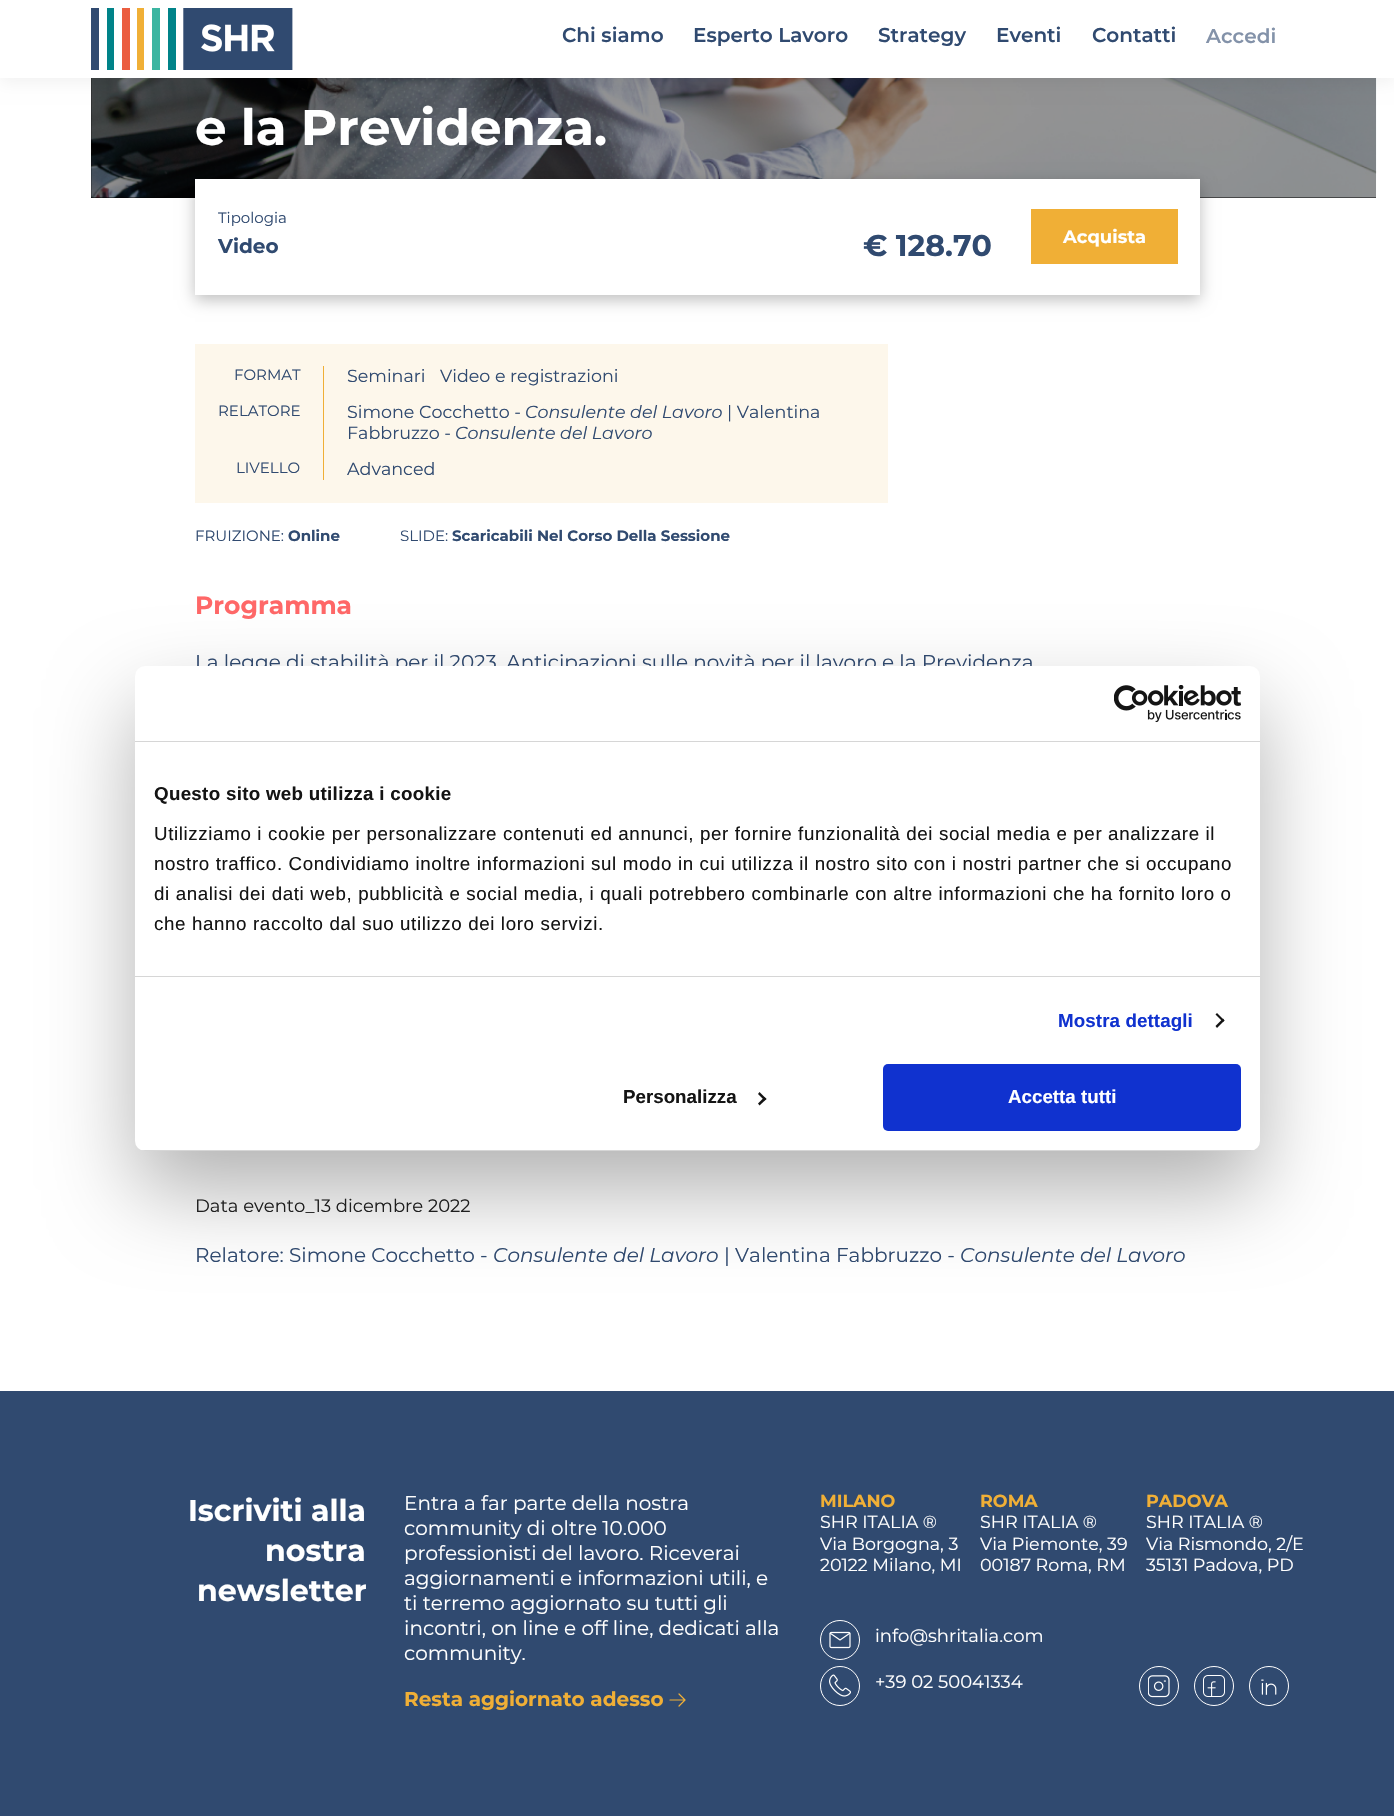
#include "include/core/SkBlurTypes.h"
#include "include/core/SkCanvas.h"
#include "include/core/SkData.h"
#include "include/core/SkFont.h"
#include "include/core/SkFontMgr.h"
#include "include/core/SkImage.h"
#include "include/core/SkMaskFilter.h"
#include "include/core/SkPaint.h"
#include "include/core/SkPathBuilder.h"
#include "include/core/SkTextBlob.h"
#include "include/effects/SkDashPathEffect.h"
#include "include/effects/SkGradientShader.h"
#include "include/utils/SkParsePath.h"

extern sk_sp<SkFontMgr> fontMgr;

static SkFont font(const char* family, int weight, float size, bool italic = false) {
    SkFontStyle style(weight, SkFontStyle::kNormal_Width,
        italic ? SkFontStyle::kItalic_Slant : SkFontStyle::kUpright_Slant);
    SkFont result(fontMgr->matchFamilyStyle(family, style), size);
    result.setSubpixel(true);
    return result;
}

static void drawLabel(SkCanvas* canvas, const char* s, float x, float y, const SkFont& font, SkColor color) {
    SkPaint ink(SkColor4f::FromColor(color));
    ink.setAntiAlias(true);
    canvas->drawString(s, x, y, font, ink);
}

static void drawTracked(SkCanvas* canvas, const char* s, float x, float y, const SkFont& font, const SkPaint& ink, float letter, float word) {
    std::vector<SkGlyphID> glyphs(font.countText(s, strlen(s), SkTextEncoding::kUTF8));
    std::vector<float> xs(glyphs.size());
    font.textToGlyphs(s, strlen(s), SkTextEncoding::kUTF8, glyphs);
    font.getXPos(glyphs, xs, x);
    float extra = 0;
    for (size_t i = 0; i < glyphs.size(); i++) {
        xs[i] += extra;
        extra += letter + word * (glyphs[i] == font.unicharToGlyph(' '));
    }
    canvas->drawTextBlob(SkTextBlob::MakeFromPosHGlyphs(glyphs, xs, y, font), 0, 0, ink);
}

static void fillRect(SkCanvas* canvas, float x, float y, float w, float h, SkColor color) {
    SkPaint ink(SkColor4f::FromColor(color));
    ink.setAntiAlias(true);
    canvas->drawRect(SkRect::MakeXYWH(x, y, w, h), ink);
}

static void fillRRect(SkCanvas* canvas, float x, float y, float w, float h, float radius, SkColor color) {
    SkPaint ink(SkColor4f::FromColor(color));
    ink.setAntiAlias(true);
    canvas->drawRoundRect(SkRect::MakeXYWH(x, y, w, h), radius, radius, ink);
}

static void drawPhoto(SkCanvas* canvas, const char* path, float x, float y, float w, float h) {
    auto image = SkImages::DeferredFromEncodedData(SkData::MakeFromFileName(path));
    canvas->drawImageRect(image, SkRect::MakeXYWH(x, y, w, h), SkSamplingOptions());
}

static SkPath parsePath(const char* data, bool evenOdd = false) {
    SkPath result = *SkParsePath::FromSVGString(data);
    if (evenOdd) result.setFillType(SkPathFillType::kEvenOdd);
    return result;
}

void draw(SkCanvas* canvas) {
    SkPaint paint;
    paint.setAntiAlias(true);
    canvas->clear(0xFFFFFFFF);
    fillRect(canvas, 91, 78, 1285, 120, 0xFF000000);
    drawPhoto(canvas, "assets/img2.png", 91, 78, 1286, 120);
    paint.setColor(0x0D000000);
    paint.setMaskFilter(SkMaskFilter::MakeBlur(kNormal_SkBlurStyle, 7.5f));
    canvas->drawRect(SkRect::MakeXYWH(0, 5, 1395, 78), paint);
    paint.setMaskFilter(nullptr);
    fillRect(canvas, 0, 0, 1394, 78, 0xFFFFFFFF);
    drawPhoto(canvas, "assets/img1.png", 91, 8, 202, 62);
    SkFont font1 = font("Montserrat", 600, 20);
    drawLabel(canvas, "Chi siamo", 562, 42, font1, 0xFF304A70);
    drawLabel(canvas, "Esperto Lavoro", 693, 42, font1, 0xFF304A70);
    drawLabel(canvas, "Strategy", 878, 42, font1, 0xFF304A70);
    drawLabel(canvas, "Eventi", 996, 42, font1, 0xFF304A70);
    drawLabel(canvas, "Contatti", 1092, 42, font1, 0xFF304A70);
    drawLabel(canvas, "Accedi", 1206, 43, font1, 0xFF8392A9);
    SkFont font2 = font("Montserrat", 700, 50);
    drawLabel(canvas, "e la Previdenza.", 195, 145, font2, 0xFFFFFFFF);
    paint.setColor(0x40000000);
    paint.setMaskFilter(SkMaskFilter::MakeBlur(kNormal_SkBlurStyle, 7.5f));
    canvas->drawRect(SkRect::MakeXYWH(195, 184, 1005, 116), paint);
    paint.setMaskFilter(nullptr);
    fillRect(canvas, 195, 179, 1005, 116, 0xFFFFFFFF);
    SkFont font3 = font("Montserrat", 400, 15);
    drawLabel(canvas, "Tipologia", 218, 223, font3, 0xFF304A70);
    SkFont font4 = font("Montserrat", 700, 20);
    drawLabel(canvas, "Video", 218, 253, font4, 0xFF304A70);
    SkFont font5 = font("Montserrat", 700, 30);
    drawLabel(canvas, "€ 128.70", 863, 256, font5, 0xFF304A70);
    fillRect(canvas, 1031, 209, 147, 55, 0xFFF0AF36);
    SkFont font6 = font("Montserrat", 700, 18);
    drawLabel(canvas, "Acquista", 1063, 243, font6, 0xFFFFFFFF);
    fillRect(canvas, 195, 344, 693, 159, 0xFFFDF7EB);
    fillRect(canvas, 323, 366, 1, 114, 0xFFF0AF36);
    drawLabel(canvas, "FORMAT", 234, 380, font3, 0xFF304A70);
    SkFont font7 = font("Montserrat", 400, 17.5f);
    drawLabel(canvas, "Seminari", 347, 382, font7, 0xFF304A70);
    drawLabel(canvas, "Video e registrazioni", 440, 382, font7, 0xFF304A70);
    drawLabel(canvas, "RELATORE", 218, 416, font3, 0xFF304A70);
    drawLabel(canvas, "Simone Cocchetto -", 347, 418, font7, 0xFF304A70);
    SkFont font8 = font("Montserrat", 400, 17.5f, true);
    drawLabel(canvas, "Consulente del Lavoro", 525, 418, font8, 0xFF304A70);
    drawLabel(canvas, "| Valentina", 727, 418, font7, 0xFF304A70);
    drawLabel(canvas, "Fabbruzzo -", 347, 439, font7, 0xFF304A70);
    drawLabel(canvas, "Consulente del Lavoro", 455, 439, font8, 0xFF304A70);
    drawLabel(canvas, "LIVELLO", 236, 473, font3, 0xFF304A70);
    drawLabel(canvas, "Advanced", 347, 475, font7, 0xFF304A70);
    drawLabel(canvas, "FRUIZIONE:", 195, 541, font3, 0xFF304A70);
    SkFont font9 = font("Montserrat", 700, 15);
    drawLabel(canvas, "Online", 288, 541, font9, 0xFF304A70);
    drawLabel(canvas, "SLIDE:", 400, 541, font3, 0xFF304A70);
    drawLabel(canvas, "Scaricabili Nel Corso Della Sessione", 452, 541, font9, 0xFF304A70);
    SkFont font10 = font("Montserrat", 700, 25);
    drawLabel(canvas, "Programma", 195, 614, font10, 0xFFFF6767);
    SkFont font11 = font("Montserrat", 400, 20);
    drawLabel(canvas, "La legge di stabilità per il 2023. Anticipazioni sulle novità per il lavoro e la Previdenza", 195, 669, font11, 0xFF304A70);
    SkFont font12 = font("Montserrat", 400, 18);
    drawLabel(canvas, "Data evento_13 dicembre 2022", 195, 1212, font12, 0xFF222222);
    drawLabel(canvas, "Relatore: Simone Cocchetto -", 195, 1262, font11, 0xFF304A70);
    SkFont font13 = font("Montserrat", 400, 20, true);
    drawLabel(canvas, "Consulente del Lavoro", 493, 1262, font13, 0xFF304A70);
    drawLabel(canvas, "| Valentina Fabbruzzo -", 724, 1262, font11, 0xFF304A70);
    drawLabel(canvas, "Consulente del Lavoro", 960, 1262, font13, 0xFF304A70);
    fillRect(canvas, 0, 1391, 1394, 425, 0xFF304A70);
    drawLabel(canvas, "Iscriviti alla", 188, 1521, font5, 0xFFFFFFFF);
    drawLabel(canvas, "nostra", 265, 1561, font5, 0xFFFFFFFF);
    drawLabel(canvas, "newsletter", 197, 1601, font5, 0xFFFFFFFF);
    drawLabel(canvas, "Entra a far parte della nostra", 404, 1510, font11, 0xFFFFFFFF);
    drawLabel(canvas, "community di oltre 10.000", 404, 1535, font11, 0xFFFFFFFF);
    drawLabel(canvas, "professionisti del lavoro. Riceverai", 404, 1560, font11, 0xFFFFFFFF);
    drawLabel(canvas, "aggiornamenti e informazioni utili, e", 404, 1585, font11, 0xFFFFFFFF);
    drawLabel(canvas, "ti terremo aggiornato su tutti gli", 404, 1610, font11, 0xFFFFFFFF);
    drawLabel(canvas, "incontri, on line e off line, dedicati alla", 404, 1635, font11, 0xFFFFFFFF);
    drawLabel(canvas, "community.", 404, 1660, font11, 0xFFFFFFFF);
    drawLabel(canvas, "Resta aggiornato adesso", 404, 1706, font4, 0xFFF0AF36);
    paint.setStroke(true);
    paint.setStrokeWidth(1.2f);
    paint.setStrokeCap(SkPaint::kRound_Cap);
    paint.setStrokeJoin(SkPaint::kRound_Join);
    paint.setColor(0xFFF0AF36);
    canvas->drawPath(parsePath("M670 1700H685M685 1700L679 1694M685 1700L679 1706"), paint);
    SkFont font14 = font("Montserrat", 700, 17.5f);
    drawLabel(canvas, "MILANO", 820, 1507, font14, 0xFFF0AF36);
    drawLabel(canvas, "SHR ITALIA ®", 820, 1528, font7, 0xFFFFFFFF);
    drawLabel(canvas, "Via Borgogna, 3", 820, 1550, font7, 0xFFFFFFFF);
    drawLabel(canvas, "20122 Milano, MI", 820, 1571, font7, 0xFFFFFFFF);
    drawLabel(canvas, "ROMA", 980, 1507, font14, 0xFFF0AF36);
    drawLabel(canvas, "SHR ITALIA ®", 980, 1528, font7, 0xFFFFFFFF);
    drawLabel(canvas, "Via Piemonte, 39", 980, 1550, font7, 0xFFFFFFFF);
    drawLabel(canvas, "00187 Roma, RM", 980, 1571, font7, 0xFFFFFFFF);
    drawLabel(canvas, "PADOVA", 1146, 1507, font14, 0xFFF0AF36);
    drawLabel(canvas, "SHR ITALIA ®", 1146, 1528, font7, 0xFFFFFFFF);
    drawLabel(canvas, "Via Rismondo, 2/E", 1146, 1550, font7, 0xFFFFFFFF);
    drawLabel(canvas, "35131 Padova, PD", 1146, 1571, font7, 0xFFFFFFFF);
    paint.setStrokeWidth(1);
    paint.setStrokeCap(SkPaint::kButt_Cap);
    paint.setStrokeJoin(SkPaint::kMiter_Join);
    paint.setColor(0xFFFFFFFF);
    canvas->drawCircle(840, 1640, 19.5f, paint);
    drawPhoto(canvas, "assets/img3.png", 829, 1631, 22, 18);
    drawLabel(canvas, "info@shritalia.com", 875, 1642, font12, 0xFFFFFFFF);
    canvas->drawCircle(840, 1686, 19.5f, paint);
    drawPhoto(canvas, "assets/img4.png", 829, 1674, 22, 23);
    drawLabel(canvas, "+39 02 50041334", 875, 1688, font12, 0xFFFFFFFF);
    canvas->drawCircle(1159, 1686, 19.5f, paint);
    drawPhoto(canvas, "assets/img5.png", 1148, 1675, 22, 23);
    canvas->drawCircle(1214, 1686, 19.5f, paint);
    drawPhoto(canvas, "assets/img6.png", 1203, 1675, 22, 22);
    canvas->drawCircle(1269, 1686, 19.5f, paint);
    drawPhoto(canvas, "assets/img7.png", 1261, 1679, 16, 16);
    paint.setStroke(false);
    paint.setColor(0x4D000000);
    paint.setMaskFilter(SkMaskFilter::MakeBlur(kNormal_SkBlurStyle, 42.5f));
    canvas->drawRoundRect(SkRect::MakeXYWH(135, 706, 1125, 485), 10, 10, paint);
    paint.setMaskFilter(nullptr);
    fillRRect(canvas, 135, 666, 1125, 485, 10, 0xFFFFFFFF);
    fillRect(canvas, 135, 741, 1125, 1, 0xFFD6D6D6);
    drawPhoto(canvas, "assets/img8.png", 1114, 685, 127, 38);
    fillRect(canvas, 135, 976, 1125, 1, 0xFFD6D6D6);
    SkFont font15 = font("Liberation Sans", 700, 18.75f);
    paint.setColor(0xFF141414);
    drawTracked(canvas, "Questo sito web utilizza i cookie", 154, 800, font15, paint, 0.3f, 0);
    SkFont font16 = font("Liberation Sans", 400, 18.75f);
    drawTracked(canvas, "Utilizziamo i cookie per personalizzare contenuti ed annunci, per fornire funzionalità dei social media e per analizzare il", 154, 840, font16, paint, 0.62f, 0);
    drawTracked(canvas, "nostro traffico. Condividiamo inoltre informazioni sul modo in cui utilizza il nostro sito con i nostri partner che si occupano", 154, 870, font16, paint, 0.62f, 0);
    drawTracked(canvas, "di analisi dei dati web, pubblicità e social media, i quali potrebbero combinarle con altre informazioni che ha fornito loro o", 154, 900, font16, paint, 0.62f, 0);
    drawTracked(canvas, "che hanno raccolto dal suo utilizzo dei loro servizi.", 154, 930, font16, paint, 0.62f, 0);
    paint.setColor(0xFF1032CF);
    drawTracked(canvas, "Mostra dettagli", 1058, 1027, font15, paint, 0.1f, 0);
    paint.setColor(0xFF141414);
    canvas->drawPath(parsePath("M1217 1013L1224.5 1020.5L1223 1022L1215.5 1014.5Z"), paint);
    canvas->drawPath(parsePath("M1223 1018.5L1224.5 1020.5L1217 1028L1215.5 1026Z"), paint);
    canvas->save();
    canvas->clipPath(parsePath("M145 666H1250C1255.5 666 1260 670.5 1260 676V1141C1260 1146.5 1255.5 1151 1250 1151H145C139.5 1151 135 1146.5 135 1141V676C135 670.5 139.5 666 145 666Z"), true);
    fillRect(canvas, 135, 1150, 1125, 1, 0xFFD6D6D6);
    canvas->restore();
    drawLabel(canvas, "Personalizza", 623, 1103, font15, 0xFF141414);
    canvas->drawPath(parsePath("M759.5 1092L766.5 1099L764.5 1100.5L758 1094Z"), paint);
    canvas->drawPath(parsePath("M764.5 1097L766.5 1099L759.5 1105.5L758 1103.5Z"), paint);
    fillRRect(canvas, 883, 1064, 358, 67, 5, 0xFF1032CF);
    drawLabel(canvas, "Accetta tutti", 1008, 1103, font15, 0xFFFFFFFF);
}
